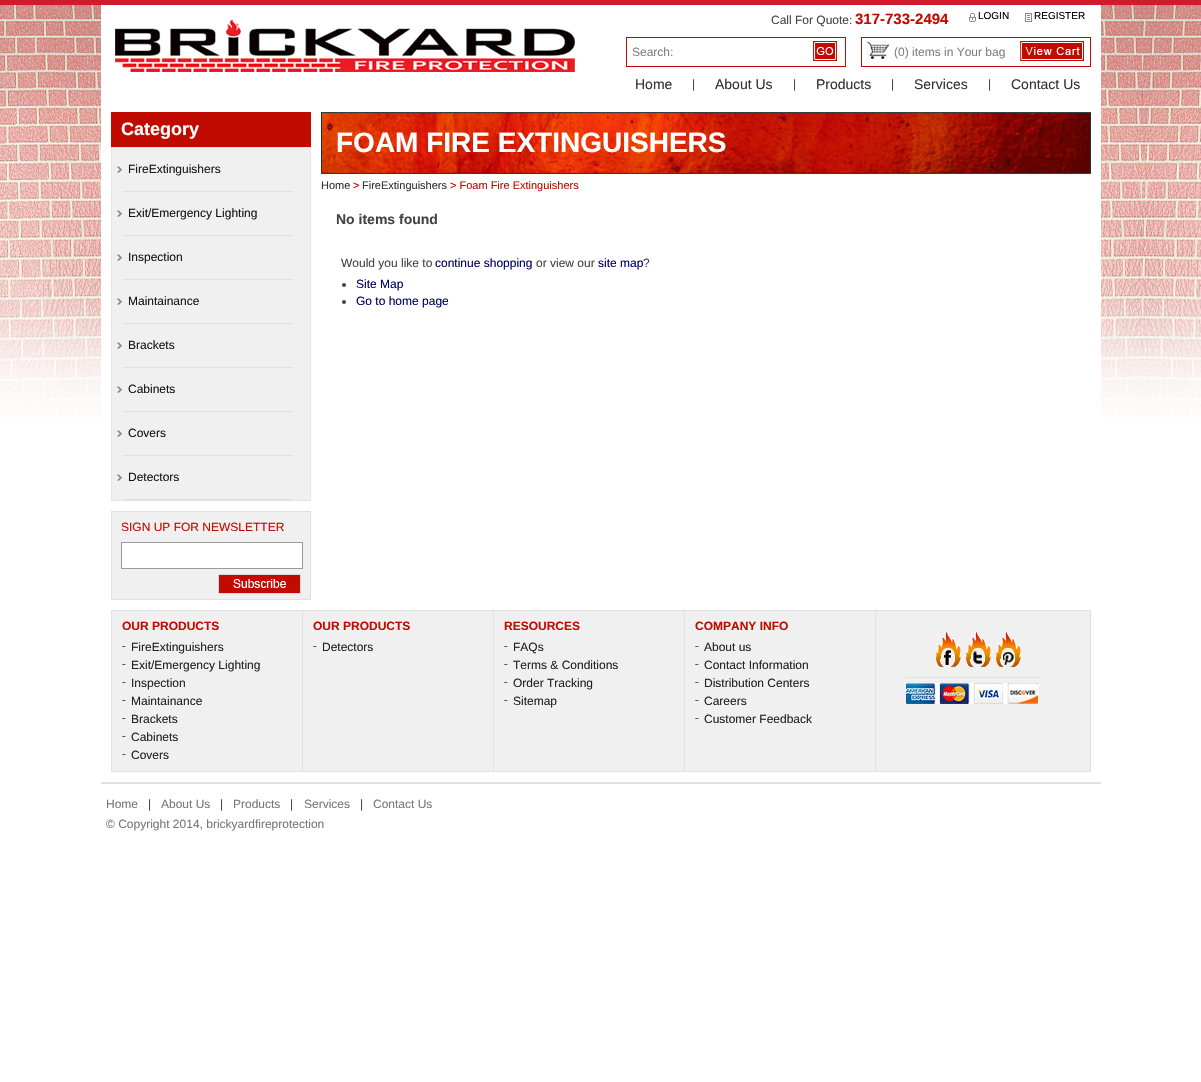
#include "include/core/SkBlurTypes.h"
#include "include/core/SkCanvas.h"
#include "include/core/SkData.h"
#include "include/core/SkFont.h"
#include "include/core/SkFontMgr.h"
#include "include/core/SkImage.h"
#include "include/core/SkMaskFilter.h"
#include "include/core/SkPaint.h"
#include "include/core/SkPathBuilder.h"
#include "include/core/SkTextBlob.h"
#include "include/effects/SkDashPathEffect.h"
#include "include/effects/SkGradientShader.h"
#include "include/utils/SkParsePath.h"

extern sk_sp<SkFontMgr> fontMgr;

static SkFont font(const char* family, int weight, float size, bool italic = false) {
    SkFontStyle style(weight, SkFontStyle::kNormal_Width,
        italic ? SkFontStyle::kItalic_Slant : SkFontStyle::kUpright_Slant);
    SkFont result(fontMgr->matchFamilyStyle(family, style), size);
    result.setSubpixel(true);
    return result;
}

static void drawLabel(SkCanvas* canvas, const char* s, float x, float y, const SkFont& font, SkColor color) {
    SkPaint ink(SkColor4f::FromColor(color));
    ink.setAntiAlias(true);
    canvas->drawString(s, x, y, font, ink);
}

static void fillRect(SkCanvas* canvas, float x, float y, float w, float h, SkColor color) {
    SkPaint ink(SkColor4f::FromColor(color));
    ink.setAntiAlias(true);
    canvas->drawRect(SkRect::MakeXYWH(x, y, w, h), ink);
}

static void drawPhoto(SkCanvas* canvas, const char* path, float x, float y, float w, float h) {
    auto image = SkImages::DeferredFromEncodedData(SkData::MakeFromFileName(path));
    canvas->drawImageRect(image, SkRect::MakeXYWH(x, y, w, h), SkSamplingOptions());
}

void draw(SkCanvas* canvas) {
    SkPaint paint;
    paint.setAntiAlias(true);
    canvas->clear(0xFFFFFFFF);
    drawPhoto(canvas, "assets/img1.png", 0, 0, 1201, 417);
    fillRect(canvas, 101, 5, 1000, 412, 0xFFFFFFFF);
    drawPhoto(canvas, "assets/img2.png", 115, 20, 460, 52);
    SkFont font1 = font("Liberation Sans", 400, 12);
    drawLabel(canvas, "Call For Quote:", 771, 24, font1, 0xFF444444);
    SkFont font2 = font("Liberation Sans", 700, 15);
    drawLabel(canvas, "317-733-2494", 855, 24, font2, 0xFFC20B00);
    drawPhoto(canvas, "assets/img3.png", 969, 13, 7, 9);
    SkFont font3 = font("Liberation Sans", 400, 10);
    drawLabel(canvas, "LOGIN", 978, 19, font3, 0xFF000000);
    drawPhoto(canvas, "assets/img4.png", 1025, 13, 7, 9);
    drawLabel(canvas, "REGISTER", 1034, 19, font3, 0xFF000000);
    paint.setStroke(true);
    paint.setStrokeWidth(1);
    paint.setColor(0xFFC20B00);
    canvas->drawRect(SkRect::MakeXYWH(626.5f, 37.5f, 219, 29), paint);
    drawLabel(canvas, "Search:", 632, 56, font1, 0xFF7F7F7F);
    drawPhoto(canvas, "assets/img5.png", 813, 41, 24, 20);
    canvas->drawRect(SkRect::MakeXYWH(861.5f, 37.5f, 229, 29), paint);
    drawPhoto(canvas, "assets/img6.png", 867, 41, 22, 18);
    drawLabel(canvas, "(0) items in Your bag", 894, 56, font1, 0xFF7F7F7F);
    drawPhoto(canvas, "assets/img7.png", 1020, 41, 64, 20);
    SkFont font4 = font("Liberation Sans", 400, 14);
    drawLabel(canvas, "Home", 635, 89, font4, 0xFF333333);
    drawLabel(canvas, "|", 692, 88, font1, 0xFF444444);
    drawLabel(canvas, "About Us", 715, 89, font4, 0xFF333333);
    drawLabel(canvas, "|", 793, 88, font1, 0xFF444444);
    drawLabel(canvas, "Products", 816, 89, font4, 0xFF333333);
    drawLabel(canvas, "|", 891, 88, font1, 0xFF444444);
    drawLabel(canvas, "Services", 914, 89, font4, 0xFF333333);
    drawLabel(canvas, "|", 988, 88, font1, 0xFF444444);
    drawLabel(canvas, "Contact Us", 1011, 89, font4, 0xFF333333);
    fillRect(canvas, 111, 112, 200, 35, 0xFFC20B00);
    SkFont font5 = font("Liberation Sans", 700, 18);
    drawLabel(canvas, "Category", 121, 135, font5, 0xFFFFFFFF);
    paint.setStroke(false);
    paint.setColor(0xFFF0F0F0);
    canvas->drawRect(SkRect::MakeXYWH(111.5f, 147.5f, 199, 353), paint);
    paint.setStroke(true);
    paint.setColor(0xFFE4E4E4);
    canvas->drawRect(SkRect::MakeXYWH(111.5f, 147.5f, 199, 353), paint);
    drawPhoto(canvas, "assets/img8.png", 116, 166, 7, 7);
    fillRect(canvas, 123, 191, 170, 1, 0xFFE1E1E1);
    drawLabel(canvas, "FireExtinguishers", 128, 173, font1, 0xFF171717);
    drawPhoto(canvas, "assets/img8.png", 116, 210, 7, 7);
    fillRect(canvas, 123, 235, 170, 1, 0xFFE1E1E1);
    drawLabel(canvas, "Exit/Emergency Lighting", 128, 217, font1, 0xFF171717);
    drawPhoto(canvas, "assets/img8.png", 116, 254, 7, 7);
    fillRect(canvas, 123, 279, 170, 1, 0xFFE1E1E1);
    drawLabel(canvas, "Inspection", 128, 261, font1, 0xFF171717);
    drawPhoto(canvas, "assets/img8.png", 116, 298, 7, 7);
    fillRect(canvas, 123, 323, 170, 1, 0xFFE1E1E1);
    drawLabel(canvas, "Maintainance", 128, 305, font1, 0xFF171717);
    drawPhoto(canvas, "assets/img8.png", 116, 342, 7, 7);
    fillRect(canvas, 123, 367, 170, 1, 0xFFE1E1E1);
    drawLabel(canvas, "Brackets", 128, 349, font1, 0xFF171717);
    drawPhoto(canvas, "assets/img8.png", 116, 386, 7, 7);
    fillRect(canvas, 123, 411, 170, 1, 0xFFE1E1E1);
    drawLabel(canvas, "Cabinets", 128, 393, font1, 0xFF171717);
    drawPhoto(canvas, "assets/img8.png", 116, 430, 7, 7);
    fillRect(canvas, 123, 455, 170, 1, 0xFFE1E1E1);
    drawLabel(canvas, "Covers", 128, 437, font1, 0xFF171717);
    drawPhoto(canvas, "assets/img8.png", 116, 474, 7, 7);
    fillRect(canvas, 123, 499, 170, 1, 0xFFE1E1E1);
    drawLabel(canvas, "Detectors", 128, 481, font1, 0xFF171717);
    paint.setStroke(false);
    paint.setColor(0xFFF0F0F0);
    canvas->drawRect(SkRect::MakeXYWH(111.5f, 511.5f, 199, 88), paint);
    paint.setStroke(true);
    paint.setColor(0xFFE1E1E1);
    canvas->drawRect(SkRect::MakeXYWH(111.5f, 511.5f, 199, 88), paint);
    drawLabel(canvas, "SIGN UP FOR NEWSLETTER", 121, 531, font1, 0xFFC20B00);
    paint.setStroke(false);
    paint.setColor(0xFFFFFFFF);
    canvas->drawRect(SkRect::MakeXYWH(121.5f, 542.5f, 181, 26), paint);
    paint.setStroke(true);
    paint.setColor(0xFF999999);
    canvas->drawRect(SkRect::MakeXYWH(121.5f, 542.5f, 181, 26), paint);
    drawPhoto(canvas, "assets/img9.png", 218, 574, 83, 20);
    drawPhoto(canvas, "assets/img10.png", 321, 112, 770, 62);
    SkFont font6 = font("Liberation Sans", 700, 28);
    drawLabel(canvas, "FOAM FIRE EXTINGUISHERS", 336, 152, font6, 0xFFFFFFFF);
    SkFont font7 = font("Liberation Sans", 400, 11);
    drawLabel(canvas, "Home", 321, 189, font7, 0xFF333333);
    drawLabel(canvas, ">", 353, 189, font7, 0xFFC20B00);
    drawLabel(canvas, "FireExtinguishers", 362, 189, font7, 0xFF333333);
    drawLabel(canvas, "> Foam Fire Extinguishers", 450, 189, font7, 0xFFC20B00);
    SkFont font8 = font("Liberation Sans", 700, 14);
    drawLabel(canvas, "No items found", 336, 224, font8, 0xFF444444);
    drawLabel(canvas, "Would you like to", 341, 267, font1, 0xFF444444);
    drawLabel(canvas, "continue shopping", 435, 267, font1, 0xFF000066);
    drawLabel(canvas, "or view our", 536, 267, font1, 0xFF444444);
    drawLabel(canvas, "site map", 598, 267, font1, 0xFF000066);
    drawLabel(canvas, "?", 643, 267, font1, 0xFF444444);
    paint.setStroke(false);
    paint.setColor(0xFF444444);
    canvas->drawCircle(344, 285, 2, paint);
    drawLabel(canvas, "Site Map", 356, 288, font1, 0xFF000066);
    canvas->drawCircle(344, 302, 2, paint);
    drawLabel(canvas, "Go to home page", 356, 305, font1, 0xFF000066);
    paint.setColor(0xFFF0F0F0);
    canvas->drawRect(SkRect::MakeXYWH(111.5f, 610.5f, 979, 161), paint);
    paint.setStroke(true);
    paint.setColor(0xFFE1E1E1);
    canvas->drawRect(SkRect::MakeXYWH(111.5f, 610.5f, 979, 161), paint);
    fillRect(canvas, 302, 611, 1, 160, 0xFFE1E1E1);
    SkFont font9 = font("Liberation Sans", 700, 12);
    drawLabel(canvas, "OUR PRODUCTS", 122, 630, font9, 0xFFC20B00);
    drawPhoto(canvas, "assets/img11.png", 122, 646, 4, 1);
    drawLabel(canvas, "FireExtinguishers", 131, 651, font1, 0xFF222222);
    drawPhoto(canvas, "assets/img11.png", 122, 664, 4, 1);
    drawLabel(canvas, "Exit/Emergency Lighting", 131, 669, font1, 0xFF222222);
    drawPhoto(canvas, "assets/img11.png", 122, 682, 4, 1);
    drawLabel(canvas, "Inspection", 131, 687, font1, 0xFF222222);
    drawPhoto(canvas, "assets/img11.png", 122, 700, 4, 1);
    drawLabel(canvas, "Maintainance", 131, 705, font1, 0xFF222222);
    drawPhoto(canvas, "assets/img11.png", 122, 718, 4, 1);
    drawLabel(canvas, "Brackets", 131, 723, font1, 0xFF222222);
    drawPhoto(canvas, "assets/img11.png", 122, 736, 4, 1);
    drawLabel(canvas, "Cabinets", 131, 741, font1, 0xFF222222);
    drawPhoto(canvas, "assets/img11.png", 122, 754, 4, 1);
    drawLabel(canvas, "Covers", 131, 759, font1, 0xFF222222);
    fillRect(canvas, 493, 611, 1, 160, 0xFFE1E1E1);
    drawLabel(canvas, "OUR PRODUCTS", 313, 630, font9, 0xFFC20B00);
    drawPhoto(canvas, "assets/img11.png", 313, 646, 4, 1);
    drawLabel(canvas, "Detectors", 322, 651, font1, 0xFF222222);
    fillRect(canvas, 684, 611, 1, 160, 0xFFE1E1E1);
    drawLabel(canvas, "RESOURCES", 504, 630, font9, 0xFFC20B00);
    drawPhoto(canvas, "assets/img11.png", 504, 646, 4, 1);
    drawLabel(canvas, "FAQs", 513, 651, font1, 0xFF222222);
    drawPhoto(canvas, "assets/img11.png", 504, 664, 4, 1);
    drawLabel(canvas, "Terms & Conditions", 513, 669, font1, 0xFF222222);
    drawPhoto(canvas, "assets/img11.png", 504, 682, 4, 1);
    drawLabel(canvas, "Order Tracking", 513, 687, font1, 0xFF222222);
    drawPhoto(canvas, "assets/img11.png", 504, 700, 4, 1);
    drawLabel(canvas, "Sitemap", 513, 705, font1, 0xFF222222);
    fillRect(canvas, 875, 611, 1, 160, 0xFFE1E1E1);
    drawLabel(canvas, "COMPANY INFO", 695, 630, font9, 0xFFC20B00);
    drawPhoto(canvas, "assets/img11.png", 695, 646, 4, 1);
    drawLabel(canvas, "About us", 704, 651, font1, 0xFF222222);
    drawPhoto(canvas, "assets/img11.png", 695, 664, 4, 1);
    drawLabel(canvas, "Contact Information", 704, 669, font1, 0xFF222222);
    drawPhoto(canvas, "assets/img11.png", 695, 682, 4, 1);
    drawLabel(canvas, "Distribution Centers", 704, 687, font1, 0xFF222222);
    drawPhoto(canvas, "assets/img11.png", 695, 700, 4, 1);
    drawLabel(canvas, "Careers", 704, 705, font1, 0xFF222222);
    drawPhoto(canvas, "assets/img11.png", 695, 718, 4, 1);
    drawLabel(canvas, "Customer Feedback", 704, 723, font1, 0xFF222222);
    drawPhoto(canvas, "assets/img12.png", 936, 631, 25, 36);
    drawPhoto(canvas, "assets/img13.png", 966, 631, 25, 36);
    drawPhoto(canvas, "assets/img14.png", 996, 631, 25, 36);
    fillRect(canvas, 906, 677, 133, 1, 0xFFE1E1E1);
    drawPhoto(canvas, "assets/img15.png", 906, 683, 133, 21);
    fillRect(canvas, 101, 782, 1000, 2, 0xFFE1E1E1);
    drawLabel(canvas, "Home", 106, 808, font1, 0xFF777777);
    drawLabel(canvas, "|", 148, 808, font1, 0xFF444444);
    drawLabel(canvas, "About Us", 161, 808, font1, 0xFF777777);
    drawLabel(canvas, "|", 220, 808, font1, 0xFF444444);
    drawLabel(canvas, "Products", 233, 808, font1, 0xFF777777);
    drawLabel(canvas, "|", 290, 808, font1, 0xFF444444);
    drawLabel(canvas, "Services", 304, 808, font1, 0xFF777777);
    drawLabel(canvas, "|", 360, 808, font1, 0xFF444444);
    drawLabel(canvas, "Contact Us", 373, 808, font1, 0xFF777777);
    drawLabel(canvas, "© Copyright 2014, brickyardfireprotection", 106, 828, font1, 0xFF777777);
}
